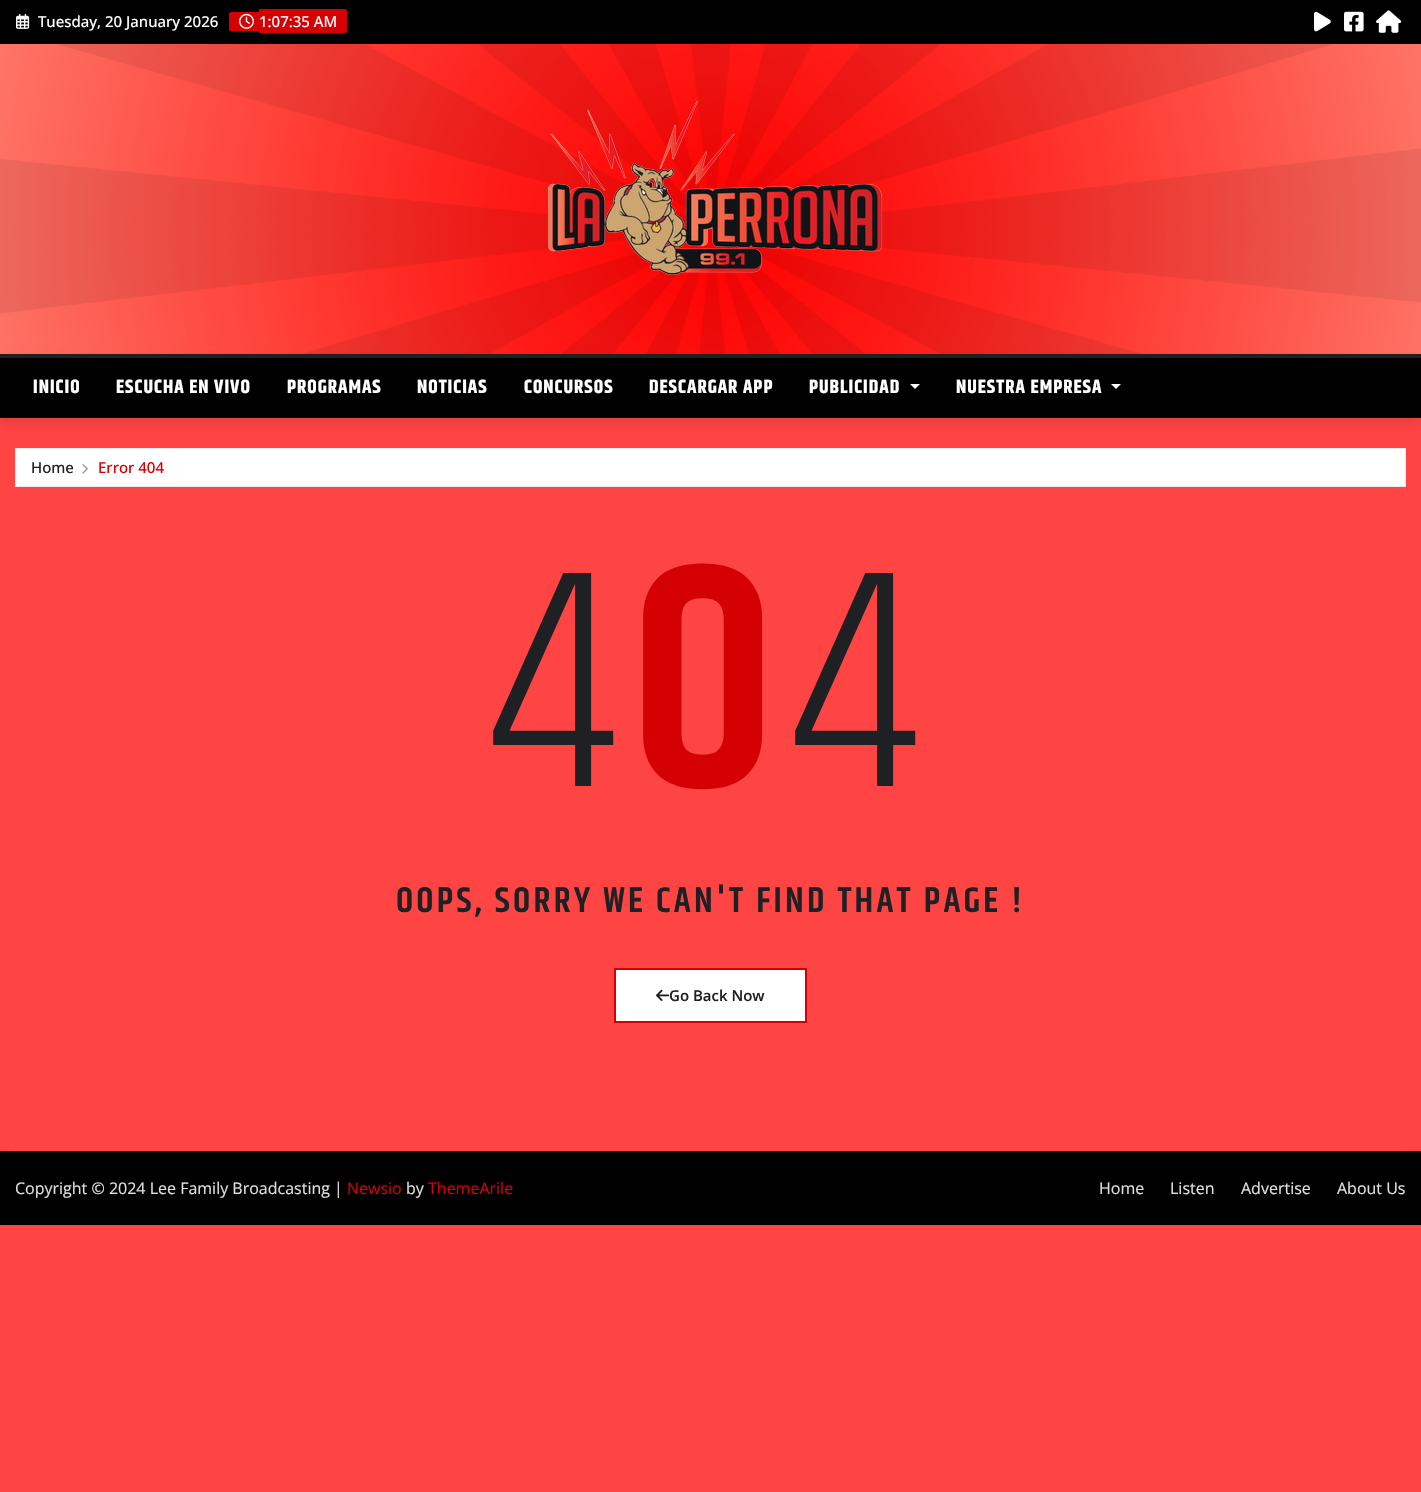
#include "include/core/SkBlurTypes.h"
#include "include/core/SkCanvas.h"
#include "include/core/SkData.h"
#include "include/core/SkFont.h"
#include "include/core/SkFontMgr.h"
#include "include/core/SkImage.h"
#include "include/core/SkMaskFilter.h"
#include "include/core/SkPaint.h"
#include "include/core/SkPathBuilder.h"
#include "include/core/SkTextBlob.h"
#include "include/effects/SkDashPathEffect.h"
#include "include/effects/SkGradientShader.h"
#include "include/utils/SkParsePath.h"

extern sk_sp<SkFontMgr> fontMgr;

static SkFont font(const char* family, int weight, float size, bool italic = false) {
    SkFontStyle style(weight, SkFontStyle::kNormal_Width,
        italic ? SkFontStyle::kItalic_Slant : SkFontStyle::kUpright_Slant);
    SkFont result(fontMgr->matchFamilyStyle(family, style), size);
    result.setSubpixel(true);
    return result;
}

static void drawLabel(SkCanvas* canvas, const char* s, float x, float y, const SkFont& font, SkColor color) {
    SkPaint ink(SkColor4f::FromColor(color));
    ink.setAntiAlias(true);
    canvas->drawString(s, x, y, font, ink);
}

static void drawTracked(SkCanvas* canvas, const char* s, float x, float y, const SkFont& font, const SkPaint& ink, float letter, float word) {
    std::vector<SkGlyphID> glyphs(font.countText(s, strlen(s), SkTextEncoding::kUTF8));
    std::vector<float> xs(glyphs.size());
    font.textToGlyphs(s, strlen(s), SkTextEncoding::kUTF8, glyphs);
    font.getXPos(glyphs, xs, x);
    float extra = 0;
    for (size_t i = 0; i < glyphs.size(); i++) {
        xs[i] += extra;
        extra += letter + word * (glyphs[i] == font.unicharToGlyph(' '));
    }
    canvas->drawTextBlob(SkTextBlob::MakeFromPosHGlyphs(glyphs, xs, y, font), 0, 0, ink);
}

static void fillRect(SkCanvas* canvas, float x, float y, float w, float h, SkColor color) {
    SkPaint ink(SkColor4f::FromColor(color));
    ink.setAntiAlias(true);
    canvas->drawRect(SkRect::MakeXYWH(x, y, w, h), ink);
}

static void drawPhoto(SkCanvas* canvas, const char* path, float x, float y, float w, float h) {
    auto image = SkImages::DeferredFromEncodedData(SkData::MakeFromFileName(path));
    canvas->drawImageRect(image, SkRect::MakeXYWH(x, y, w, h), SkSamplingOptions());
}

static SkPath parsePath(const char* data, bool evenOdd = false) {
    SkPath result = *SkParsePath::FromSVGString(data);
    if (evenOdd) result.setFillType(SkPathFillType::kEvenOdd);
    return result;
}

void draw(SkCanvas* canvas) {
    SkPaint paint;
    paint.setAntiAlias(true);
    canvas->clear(0xFFFF4444);
    fillRect(canvas, 0, 0, 1421, 44, 0xFF000000);
    drawPhoto(canvas, "assets/img1.png", 16, 13, 14, 16);
    SkFont font1 = font("Open Sans", 500, 15);
    drawLabel(canvas, "Tuesday, 20 January 2026", 38, 27, font1, 0xFFFFFFFF);
    paint.setColor(0xFFD40004);
    canvas->drawPath(parsePath("M231 12H259V31H231C230 31 229 30 229 29V14C229 13 230 12 231 12Z"), paint);
    drawPhoto(canvas, "assets/img2.png", 239, 13, 15, 16);
    canvas->drawPath(parsePath("M259 9H345C346 9 347 10 347 11V31C347 32 346 33 345 33H259Z"), paint);
    drawLabel(canvas, "1:07:35 AM", 259, 27, font1, 0xFFFFFFFF);
    drawPhoto(canvas, "assets/img3.png", 1314, 11, 17, 21);
    drawPhoto(canvas, "assets/img4.png", 1344, 11, 20, 21);
    drawPhoto(canvas, "assets/img5.png", 1376, 10, 26, 23);
    drawPhoto(canvas, "assets/img6.png", 0, 44, 1421, 310);
    drawPhoto(canvas, "assets/img7.png", 548, 100, 335, 175);
    paint.setColor(0x1A000000);
    paint.setMaskFilter(SkMaskFilter::MakeBlur(kNormal_SkBlurStyle, 5));
    canvas->drawRect(SkRect::MakeXYWH(0, 359, 1421, 64), paint);
    paint.setMaskFilter(nullptr);
    fillRect(canvas, 0, 358, 1421, 60, 0xFF000000);
    fillRect(canvas, 0, 354, 1421, 4, 0xFF202020);
    SkFont font2 = font("Khand", 700, 19.25f);
    paint.setColor(0xFFFFFFFF);
    drawTracked(canvas, "INICIO", 33, 393, font2, paint, 1, 0);
    drawTracked(canvas, "ESCUCHA EN VIVO", 116, 393, font2, paint, 1, 0);
    drawTracked(canvas, "PROGRAMAS", 287, 393, font2, paint, 1, 0);
    drawTracked(canvas, "NOTICIAS", 417, 393, font2, paint, 1, 0);
    drawTracked(canvas, "CONCURSOS", 524, 393, font2, paint, 1, 0);
    drawTracked(canvas, "DESCARGAR APP", 649, 393, font2, paint, 1, 0);
    drawTracked(canvas, "PUBLICIDAD", 809, 393, font2, paint, 1, 0);
    canvas->drawPath(parsePath("M910 384H920L915 389Z"), paint);
    drawTracked(canvas, "NUESTRA EMPRESA", 956, 393, font2, paint, 1, 0);
    canvas->drawPath(parsePath("M1111 384H1121L1116 389Z"), paint);
    canvas->drawRect(SkRect::MakeXYWH(15.5f, 448.5f, 1390, 38), paint);
    paint.setStroke(true);
    paint.setStrokeWidth(1);
    paint.setColor(0xFFEBEBEB);
    canvas->drawRect(SkRect::MakeXYWH(15.5f, 448.5f, 1390, 38), paint);
    drawLabel(canvas, "Home", 31, 473, font1, 0xFF1F2024);
    drawPhoto(canvas, "assets/img8.png", 82, 464, 6, 10);
    drawLabel(canvas, "Error 404", 98, 473, font1, 0xFFD40004);
    SkFont font3 = font("Khand", 300, 320);
    paint.setStroke(false);
    paint.setColor(0xFF1F2024);
    drawTracked(canvas, "4", 490, 786, font3, paint, 15, 0);
    SkFont font4 = font("Khand", 600, 320);
    paint.setColor(0xFFD40004);
    drawTracked(canvas, "0", 629, 786, font4, paint, 15, 0);
    paint.setColor(0xFF1F2024);
    drawTracked(canvas, "4", 792, 786, font3, paint, 15, 0);
    SkFont font5 = font("Khand", 600, 36);
    drawTracked(canvas, "OOPS, SORRY WE CAN'T FIND THAT PAGE !", 396, 912, font5, paint, 3.2f, 0);
    paint.setColor(0xFFFFFFFF);
    canvas->drawRect(SkRect::MakeXYWH(615, 969, 191, 53), paint);
    paint.setStroke(true);
    paint.setStrokeWidth(2);
    paint.setColor(0xFFD40004);
    canvas->drawRect(SkRect::MakeXYWH(615, 969, 191, 53), paint);
    drawPhoto(canvas, "assets/img9.png", 656, 989, 14, 12);
    SkFont font6 = font("Open Sans", 600, 15);
    drawLabel(canvas, "Go Back Now", 669, 1001, font6, 0xFF1F2024);
    fillRect(canvas, 0, 1151, 1421, 74, 0xFF000000);
    fillRect(canvas, 15, 1151, 1391, 1, 0xFF111010);
    SkFont font7 = font("Open Sans", 400, 16);
    drawLabel(canvas, "Copyright © 2024 Lee Family Broadcasting |", 15, 1194, font7, 0xFFE0E0E0);
    drawLabel(canvas, "Newsio", 347, 1194, font7, 0xFFD40004);
    drawLabel(canvas, "by", 406, 1194, font7, 0xFFE0E0E0);
    drawLabel(canvas, "ThemeArile", 428, 1194, font7, 0xFFD40004);
    drawLabel(canvas, "Home", 1099, 1194, font7, 0xFFE0E0E0);
    drawLabel(canvas, "Listen", 1170, 1194, font7, 0xFFE0E0E0);
    drawLabel(canvas, "Advertise", 1241, 1194, font7, 0xFFE0E0E0);
    drawLabel(canvas, "About Us", 1337, 1194, font7, 0xFFE0E0E0);
}
